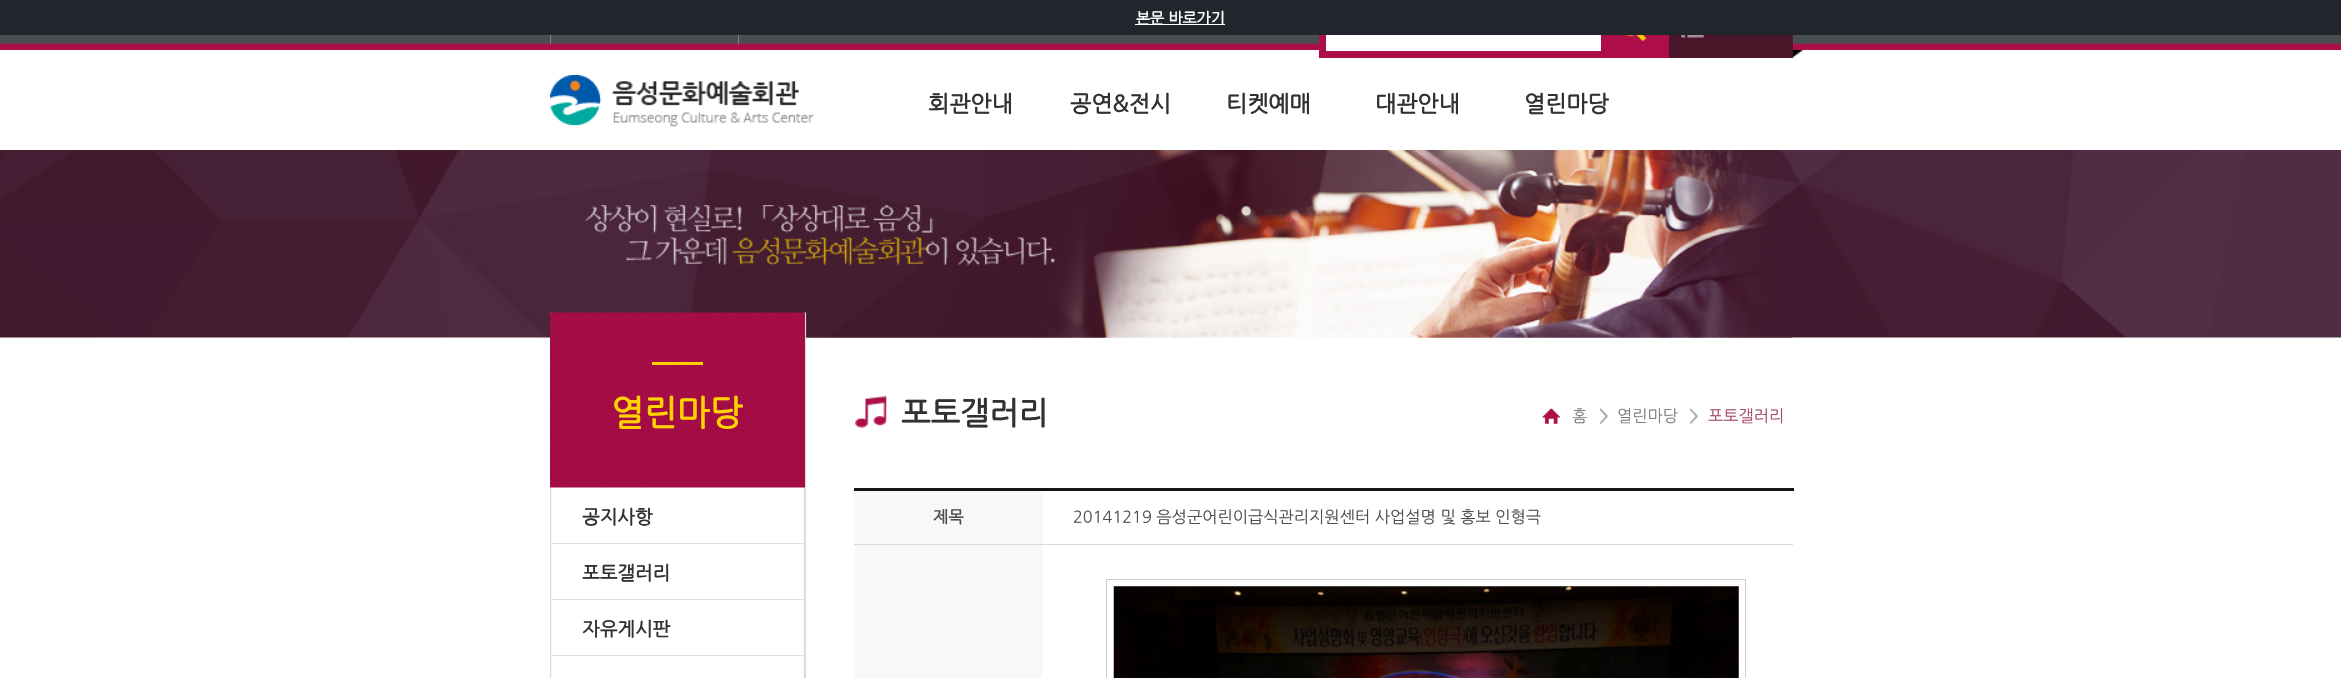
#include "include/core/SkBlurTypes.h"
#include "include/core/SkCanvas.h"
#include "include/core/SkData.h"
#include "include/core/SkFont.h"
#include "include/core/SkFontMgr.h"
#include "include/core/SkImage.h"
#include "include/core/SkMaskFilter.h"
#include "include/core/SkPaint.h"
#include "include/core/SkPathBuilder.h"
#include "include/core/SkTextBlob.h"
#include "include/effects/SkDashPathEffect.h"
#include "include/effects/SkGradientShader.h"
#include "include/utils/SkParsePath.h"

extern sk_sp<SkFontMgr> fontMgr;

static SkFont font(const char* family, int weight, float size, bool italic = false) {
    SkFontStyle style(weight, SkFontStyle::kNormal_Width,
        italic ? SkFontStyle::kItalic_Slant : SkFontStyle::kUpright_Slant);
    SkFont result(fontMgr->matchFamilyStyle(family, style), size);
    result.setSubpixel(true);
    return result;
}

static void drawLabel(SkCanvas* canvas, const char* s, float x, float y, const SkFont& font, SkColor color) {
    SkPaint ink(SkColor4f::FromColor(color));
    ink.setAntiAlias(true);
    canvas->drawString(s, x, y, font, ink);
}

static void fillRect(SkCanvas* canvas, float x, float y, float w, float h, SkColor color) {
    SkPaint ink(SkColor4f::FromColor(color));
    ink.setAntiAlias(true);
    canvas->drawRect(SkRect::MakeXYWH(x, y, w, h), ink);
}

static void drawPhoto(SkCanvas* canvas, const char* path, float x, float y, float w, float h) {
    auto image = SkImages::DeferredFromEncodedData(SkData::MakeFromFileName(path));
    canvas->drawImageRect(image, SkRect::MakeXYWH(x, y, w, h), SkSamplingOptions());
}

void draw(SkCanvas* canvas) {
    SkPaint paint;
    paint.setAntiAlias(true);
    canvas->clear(0xFFFFFFFF);
    fillRect(canvas, 0, 0, 2341, 35, 0xFF20262C);
    fillRect(canvas, 1135, 24, 90, 1, 0xFFFFFFFF);
    SkFont font1 = font("NanumGothic", 700, 15);
    drawLabel(canvas, "본문 바로가기", 1136, 23, font1, 0xFFFFFFFF);
    drawPhoto(canvas, "assets/img1.png", 0, 35, 2341, 15);
    fillRect(canvas, 738, 35, 1, 9, 0xFF808286);
    fillRect(canvas, 550, 35, 1, 9, 0xFF808286);
    drawPhoto(canvas, "assets/img2.png", 1793, 50, 11, 8);
    fillRect(canvas, 1319, 35, 350, 23, 0xFFAD0D49);
    fillRect(canvas, 1326, 35, 275, 16, 0xFFFFFFFF);
    drawPhoto(canvas, "assets/img3.png", 1625, 35, 22, 7);
    fillRect(canvas, 1669, 35, 124, 23, 0xFF4A172A);
    drawPhoto(canvas, "assets/img4.png", 1681, 35, 23, 3);
    drawPhoto(canvas, "assets/img5.png", 550, 75, 264, 52);
    SkFont font2 = font("NanumGothic", 700, 22.5f);
    drawLabel(canvas, "회관안내", 928, 111, font2, 0xFF313131);
    drawLabel(canvas, "공연&전시", 1070, 111, font2, 0xFF313131);
    drawLabel(canvas, "티켓예매", 1226, 111, font2, 0xFF313131);
    drawLabel(canvas, "대관안내", 1375, 111, font2, 0xFF313131);
    drawLabel(canvas, "열린마당", 1524, 111, font2, 0xFF313131);
    drawPhoto(canvas, "assets/img6.png", 0, 150, 2341, 188);
    drawPhoto(canvas, "assets/img7.png", 550, 150, 1243, 188);
    drawPhoto(canvas, "assets/img8.png", 585, 205, 471, 61);
    drawPhoto(canvas, "assets/img9.png", 550, 312, 257, 366);
    drawPhoto(canvas, "assets/img10.png", 550, 312, 255, 176);
    fillRect(canvas, 652, 362, 51, 3, 0xFFFFD200);
    SkFont font3 = font("NanumGothic", 700, 35);
    drawLabel(canvas, "열린마당", 611, 424, font3, 0xFFFFD200);
    fillRect(canvas, 551, 543, 253, 1, 0xFFDEDEDE);
    SkFont font4 = font("NanumGothic", 700, 18.75f);
    drawLabel(canvas, "공지사항", 582, 523, font4, 0xFF313131);
    fillRect(canvas, 551, 599, 253, 1, 0xFFDEDEDE);
    drawLabel(canvas, "포토갤러리", 582, 579, font4, 0xFF313131);
    fillRect(canvas, 551, 655, 253, 1, 0xFFDEDEDE);
    drawLabel(canvas, "자유게시판", 582, 635, font4, 0xFF313131);
    drawPhoto(canvas, "assets/img11.png", 855, 396, 32, 32);
    SkFont font5 = font("NanumGothic", 700, 31.25f);
    drawLabel(canvas, "포토갤러리", 901, 423, font5, 0xFF313131);
    drawPhoto(canvas, "assets/img12.png", 1542, 408, 18, 16);
    SkFont font6 = font("NanumGothic", 400, 16.25f);
    drawLabel(canvas, "홈", 1572, 421, font6, 0xFF7D7D7D);
    drawPhoto(canvas, "assets/img13.png", 1600, 408, 8, 16);
    drawLabel(canvas, "열린마당", 1617, 421, font6, 0xFF7D7D7D);
    drawPhoto(canvas, "assets/img14.png", 1690, 408, 8, 16);
    drawLabel(canvas, "포토갤러리", 1708, 421, font6, 0xFFA2486A);
    fillRect(canvas, 855, 491, 188, 53, 0xFFF8F8F8);
    SkFont font7 = font("NanumGothic", 700, 16.25f);
    drawLabel(canvas, "제목", 933, 522, font7, 0xFF4E4E4E);
    fillRect(canvas, 854, 544, 939, 1, 0xFFD9D9D9);
    fillRect(canvas, 854, 488, 940, 3, 0xFF151515);
    drawLabel(canvas, "20141219 음성군어린이급식관리지원센터 사업설명 및 홍보 인형극", 1073, 522, font6, 0xFF4E4E4E);
    fillRect(canvas, 855, 545, 188, 133, 0xFFF8F8F8);
    paint.setStroke(true);
    paint.setStrokeWidth(1);
    paint.setColor(0xFFCCCCCC);
    canvas->drawRect(SkRect::MakeXYWH(1106.5f, 579.5f, 639, 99), paint);
    drawPhoto(canvas, "assets/img15.png", 1113, 586, 626, 92);
}
